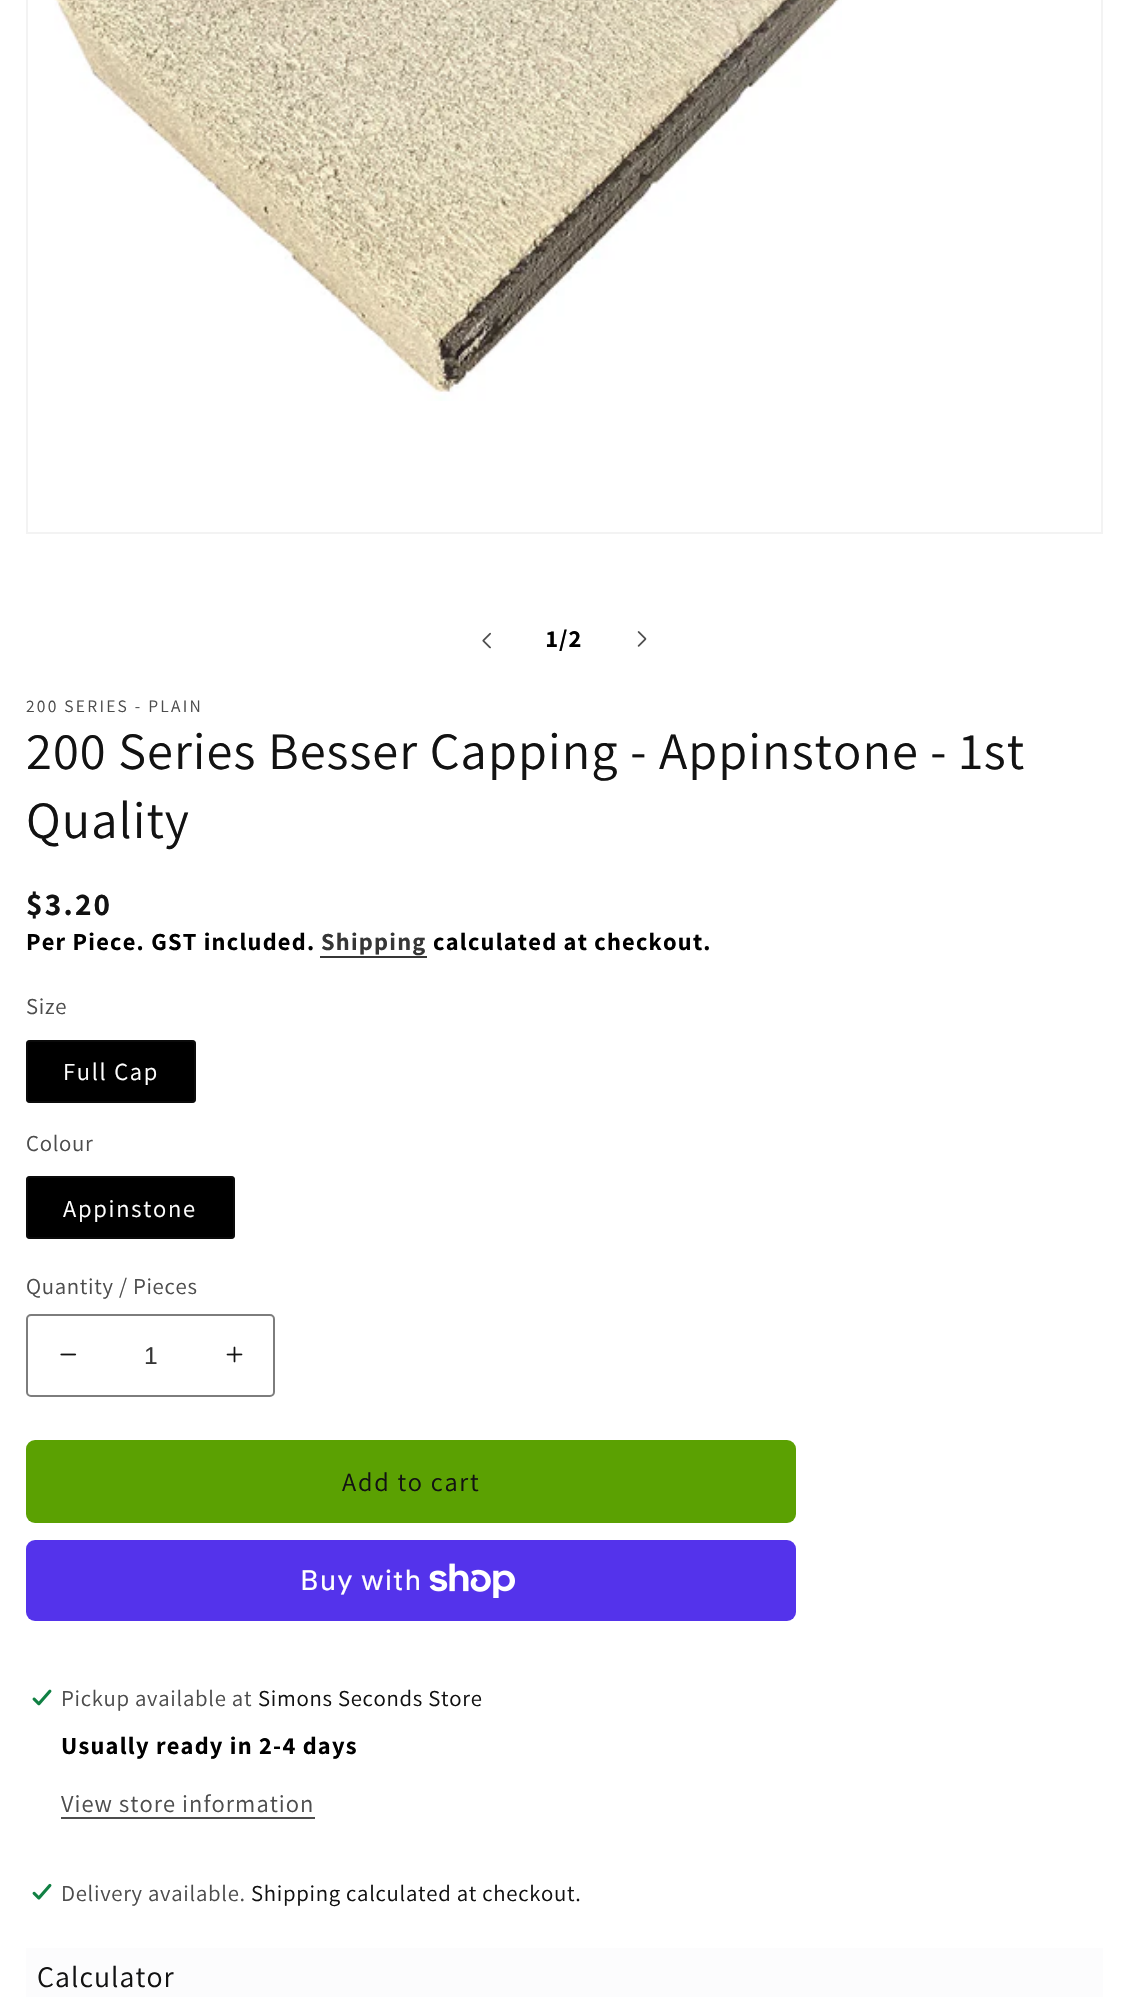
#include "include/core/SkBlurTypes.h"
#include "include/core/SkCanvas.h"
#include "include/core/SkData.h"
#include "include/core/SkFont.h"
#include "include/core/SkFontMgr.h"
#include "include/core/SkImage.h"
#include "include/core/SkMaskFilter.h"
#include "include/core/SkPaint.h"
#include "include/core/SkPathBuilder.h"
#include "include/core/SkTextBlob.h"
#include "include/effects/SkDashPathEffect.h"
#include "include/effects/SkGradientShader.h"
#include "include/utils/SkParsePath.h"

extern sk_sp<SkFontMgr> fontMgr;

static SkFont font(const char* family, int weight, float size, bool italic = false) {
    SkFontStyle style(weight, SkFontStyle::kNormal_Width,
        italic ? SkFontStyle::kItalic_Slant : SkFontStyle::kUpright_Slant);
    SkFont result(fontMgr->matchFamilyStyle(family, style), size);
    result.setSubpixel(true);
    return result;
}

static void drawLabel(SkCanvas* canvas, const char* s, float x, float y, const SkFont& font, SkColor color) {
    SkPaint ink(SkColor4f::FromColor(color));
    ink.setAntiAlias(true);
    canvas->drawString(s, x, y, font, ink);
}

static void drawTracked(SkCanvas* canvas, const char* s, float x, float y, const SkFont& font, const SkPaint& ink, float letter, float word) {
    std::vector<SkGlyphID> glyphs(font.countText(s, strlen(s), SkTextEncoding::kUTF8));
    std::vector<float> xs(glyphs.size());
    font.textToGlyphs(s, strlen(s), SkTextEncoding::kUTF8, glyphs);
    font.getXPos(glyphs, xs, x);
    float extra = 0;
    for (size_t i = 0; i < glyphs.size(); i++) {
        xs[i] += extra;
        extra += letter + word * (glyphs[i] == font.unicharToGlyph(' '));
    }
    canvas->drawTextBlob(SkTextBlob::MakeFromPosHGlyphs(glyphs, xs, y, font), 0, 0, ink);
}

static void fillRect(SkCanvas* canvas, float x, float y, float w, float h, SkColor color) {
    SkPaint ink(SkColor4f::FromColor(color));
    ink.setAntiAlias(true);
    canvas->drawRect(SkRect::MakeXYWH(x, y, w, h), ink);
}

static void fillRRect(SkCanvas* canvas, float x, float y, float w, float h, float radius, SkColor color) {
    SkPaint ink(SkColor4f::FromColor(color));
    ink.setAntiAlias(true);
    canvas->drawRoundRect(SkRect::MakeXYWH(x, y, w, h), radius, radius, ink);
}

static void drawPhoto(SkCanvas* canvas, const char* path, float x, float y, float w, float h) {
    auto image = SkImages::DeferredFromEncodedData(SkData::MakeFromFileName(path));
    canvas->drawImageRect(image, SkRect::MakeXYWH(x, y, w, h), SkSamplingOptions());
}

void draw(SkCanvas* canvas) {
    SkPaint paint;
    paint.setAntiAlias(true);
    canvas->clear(0xFFFFFFFF);
    paint.setStroke(true);
    paint.setStrokeWidth(2);
    paint.setColor(0xFFF3F3F3);
    canvas->drawRect(SkRect::MakeXYWH(27, -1, 1075, 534), paint);
    drawPhoto(canvas, "assets/img1.png", 54, 0, 788, 401);
    drawPhoto(canvas, "assets/img2.png", 482, 632, 9, 17);
    SkFont font1 = font("Assistant", 700, 24.5f);
    paint.setStroke(false);
    paint.setColor(0xFF000000);
    drawTracked(canvas, "1/2", 546, 647, font1, paint, 1.25f, 0);
    drawPhoto(canvas, "assets/img3.png", 637, 631, 10, 16);
    SkFont font2 = font("Assistant", 400, 17.5f);
    paint.setColor(0xFF4D4D4D);
    drawTracked(canvas, "200 SERIES - PLAIN", 26, 712, font2, paint, 2.25f, 0);
    SkFont font3 = font("Assistant", 400, 52.5f);
    paint.setColor(0xFF121212);
    drawTracked(canvas, "200 Series Besser Capping - Appinstone - 1st", 26, 769, font3, paint, 1.05f, 0);
    drawTracked(canvas, "Quality", 26, 838, font3, paint, 1.05f, 0);
    SkFont font4 = font("Assistant", 700, 31.5f);
    drawTracked(canvas, "$3.20", 26, 915, font4, paint, 2.25f, 0);
    paint.setColor(0xFF000000);
    drawTracked(canvas, "Per Piece. GST included.", 26, 950, font1, paint, 1.25f, 0);
    paint.setColor(0xFF363636);
    drawTracked(canvas, "Shipping", 321, 950, font1, paint, 1.25f, 0);
    fillRect(canvas, 320, 956, 107, 2, 0xFF363636);
    paint.setColor(0xFF000000);
    drawTracked(canvas, "calculated at checkout.", 433, 950, font1, paint, 1.25f, 0);
    SkFont font5 = font("Assistant", 400, 22.75f);
    paint.setColor(0xFF4D4D4D);
    drawTracked(canvas, "Size", 26, 1014, font5, paint, 0.7f, 0);
    fillRRect(canvas, 26, 1040, 170, 63, 4, 0xFF000000);
    paint.setStroke(true);
    paint.setColor(0x8C121212);
    canvas->drawRoundRect(SkRect::MakeXYWH(27, 1041, 168, 61), 3, 3, paint);
    SkFont font6 = font("Assistant", 400, 24.5f);
    paint.setStroke(false);
    paint.setColor(0xFFFFFFFF);
    drawTracked(canvas, "Full Cap", 63, 1080, font6, paint, 1.75f, 0);
    paint.setColor(0xFF4D4D4D);
    drawTracked(canvas, "Colour", 26, 1151, font5, paint, 0.7f, 0);
    fillRRect(canvas, 26, 1176, 209, 63, 4, 0xFF000000);
    paint.setStroke(true);
    paint.setColor(0x8C121212);
    canvas->drawRoundRect(SkRect::MakeXYWH(27, 1177, 207, 61), 3, 3, paint);
    paint.setStroke(false);
    paint.setColor(0xFFFFFFFF);
    drawTracked(canvas, "Appinstone", 63, 1217, font6, paint, 1.75f, 0);
    paint.setColor(0xFF4D4D4D);
    drawTracked(canvas, "Quantity / Pieces", 26, 1294, font5, paint, 0.7f, 0);
    drawPhoto(canvas, "assets/img4.png", 60, 1353, 17, 3);
    drawPhoto(canvas, "assets/img5.png", 226, 1346, 17, 17);
    paint.setStroke(true);
    paint.setColor(0xFF7D7D7D);
    canvas->drawRoundRect(SkRect::MakeXYWH(27, 1315, 247, 81), 4, 4, paint);
    SkFont font7 = font("Liberation Sans", 400, 24.5f);
    drawLabel(canvas, "1", 144, 1364, font7, 0xFF363636);
    fillRRect(canvas, 26, 1440, 770, 83, 9, 0xFF5BA102);
    SkFont font8 = font("Assistant", 400, 26.25f);
    paint.setStroke(false);
    paint.setColor(0xFF121212);
    drawTracked(canvas, "Add to cart", 342, 1491, font8, paint, 1.75f, 0);
    fillRRect(canvas, 26, 1540, 770, 81, 9, 0xFF5433EB);
    SkFont font9 = font("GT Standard", 400, 28);
    paint.setColor(0xFFFFFFFF);
    drawTracked(canvas, "Buy with", 300, 1590, font9, paint, 1.05f, 0);
    drawPhoto(canvas, "assets/img6.png", 429, 1563, 86, 35);
    drawPhoto(canvas, "assets/img7.png", 32, 1689, 20, 17);
    paint.setColor(0xFF4D4D4D);
    drawTracked(canvas, "Pickup available at", 61, 1706, font5, paint, 0.7f, 0);
    paint.setColor(0xFF121212);
    drawTracked(canvas, "Simons Seconds Store", 258, 1706, font5, paint, 0.7f, 0);
    paint.setColor(0xFF000000);
    drawTracked(canvas, "Usually ready in 2-4 days", 61, 1754, font1, paint, 1.25f, 0);
    paint.setColor(0xFF4D4D4D);
    drawTracked(canvas, "View store information", 61, 1812, font6, paint, 1.05f, 0);
    fillRect(canvas, 61, 1817, 254, 2, 0xFF4D4D4D);
    drawPhoto(canvas, "assets/img8.png", 32, 1883, 20, 17);
    drawTracked(canvas, "Delivery available.", 61, 1901, font5, paint, 0.7f, 0);
    paint.setColor(0xFF121212);
    drawTracked(canvas, "Shipping calculated at checkout.", 251, 1901, font5, paint, 0.7f, 0);
    fillRect(canvas, 26, 1948, 1077, 49, 0xFFFCFCFD);
    SkFont font10 = font("Assistant", 400, 29.75f);
    drawTracked(canvas, "Calculator", 37, 1987, font10, paint, 1.05f, 0);
}
